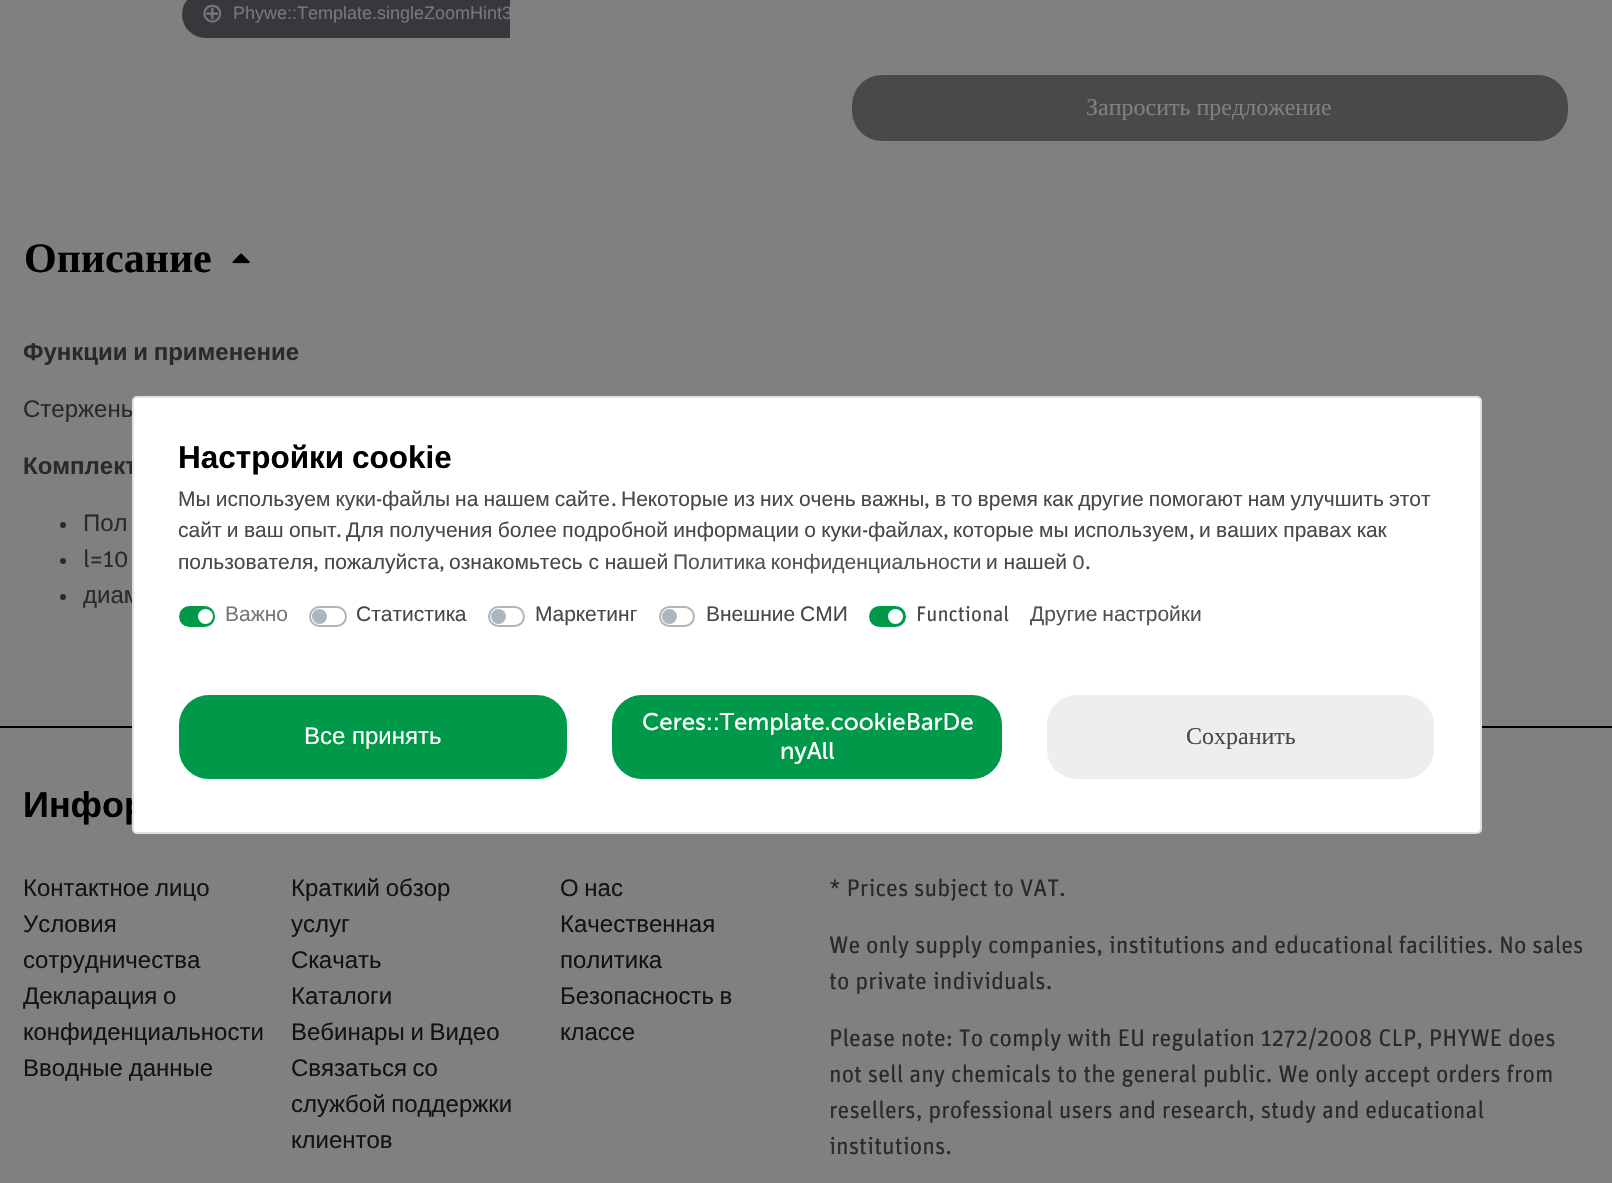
#include "include/core/SkBlurTypes.h"
#include "include/core/SkCanvas.h"
#include "include/core/SkData.h"
#include "include/core/SkFont.h"
#include "include/core/SkFontMgr.h"
#include "include/core/SkImage.h"
#include "include/core/SkMaskFilter.h"
#include "include/core/SkPaint.h"
#include "include/core/SkPathBuilder.h"
#include "include/core/SkTextBlob.h"
#include "include/effects/SkDashPathEffect.h"
#include "include/effects/SkGradientShader.h"
#include "include/utils/SkParsePath.h"

extern sk_sp<SkFontMgr> fontMgr;

static SkFont font(const char* family, int weight, float size, bool italic = false) {
    SkFontStyle style(weight, SkFontStyle::kNormal_Width,
        italic ? SkFontStyle::kItalic_Slant : SkFontStyle::kUpright_Slant);
    SkFont result(fontMgr->matchFamilyStyle(family, style), size);
    result.setSubpixel(true);
    return result;
}

static void drawLabel(SkCanvas* canvas, const char* s, float x, float y, const SkFont& font, SkColor color) {
    SkPaint ink(SkColor4f::FromColor(color));
    ink.setAntiAlias(true);
    canvas->drawString(s, x, y, font, ink);
}

static void drawTracked(SkCanvas* canvas, const char* s, float x, float y, const SkFont& font, const SkPaint& ink, float letter, float word) {
    std::vector<SkGlyphID> glyphs(font.countText(s, strlen(s), SkTextEncoding::kUTF8));
    std::vector<float> xs(glyphs.size());
    font.textToGlyphs(s, strlen(s), SkTextEncoding::kUTF8, glyphs);
    font.getXPos(glyphs, xs, x);
    float extra = 0;
    for (size_t i = 0; i < glyphs.size(); i++) {
        xs[i] += extra;
        extra += letter + word * (glyphs[i] == font.unicharToGlyph(' '));
    }
    canvas->drawTextBlob(SkTextBlob::MakeFromPosHGlyphs(glyphs, xs, y, font), 0, 0, ink);
}

static void fillRect(SkCanvas* canvas, float x, float y, float w, float h, SkColor color) {
    SkPaint ink(SkColor4f::FromColor(color));
    ink.setAntiAlias(true);
    canvas->drawRect(SkRect::MakeXYWH(x, y, w, h), ink);
}

static void fillRRect(SkCanvas* canvas, float x, float y, float w, float h, float radius, SkColor color) {
    SkPaint ink(SkColor4f::FromColor(color));
    ink.setAntiAlias(true);
    canvas->drawRoundRect(SkRect::MakeXYWH(x, y, w, h), radius, radius, ink);
}

static void drawPhoto(SkCanvas* canvas, const char* path, float x, float y, float w, float h) {
    auto image = SkImages::DeferredFromEncodedData(SkData::MakeFromFileName(path));
    canvas->drawImageRect(image, SkRect::MakeXYWH(x, y, w, h), SkSamplingOptions());
}

void draw(SkCanvas* canvas) {
    SkPaint paint;
    paint.setAntiAlias(true);
    canvas->clear(0xFF808080);
    canvas->save();
    canvas->clipRect(SkRect::MakeXYWH(146, 0, 364, 50));
    fillRRect(canvas, 182, -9, 351, 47, 23.5f, 0xFF38383C);
    canvas->restore();
    SkFont font1 = font("DejaVu Sans", 400, 27);
    drawLabel(canvas, "⊕", 201, 22, font1, 0xFF777777);
    canvas->save();
    canvas->clipRect(SkRect::MakeXYWH(146, 0, 364, 50));
    SkFont font2 = font("Liberation Sans", 400, 18);
    drawLabel(canvas, "Phywe::Template.singleZoomHint3", 233, 19, font2, 0xFF777777);
    canvas->restore();
    fillRRect(canvas, 852, 75, 716, 66, 30, 0xFF494949);
    SkFont font3 = font("Liberation Serif", 400, 24);
    drawLabel(canvas, "Запросить предложение", 1086, 115, font3, 0xFF808080);
    SkFont font4 = font("Liberation Serif", 700, 42);
    drawLabel(canvas, "Описание", 24, 272, font4, 0xFF000000);
    drawPhoto(canvas, "assets/img1.png", 232, 253, 18, 11);
    SkFont font5 = font("Liberation Sans", 700, 24);
    paint.setColor(0xFF2A2A2A);
    drawTracked(canvas, "Функции и применение", 23, 360, font5, paint, 0, -1);
    SkFont font6 = font("Liberation Sans", 400, 24);
    drawTracked(canvas, "Стержень", 23, 417, font6, paint, 0, -1);
    drawTracked(canvas, "Комплект", 23, 474, font5, paint, 0, -1);
    canvas->drawCircle(63, 525, 3, paint);
    drawLabel(canvas, "Пол", 83, 531, font6, 0xFF2A2A2A);
    canvas->drawCircle(63, 561, 3, paint);
    SkFont font7 = font("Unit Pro", 400, 24);
    drawLabel(canvas, "l=10", 83, 567, font7, 0xFF2A2A2A);
    canvas->drawCircle(63, 597, 3, paint);
    drawLabel(canvas, "диам", 83, 603, font6, 0xFF2A2A2A);
    fillRect(canvas, 0, 726, 1612, 2, 0xFF000000);
    SkFont font8 = font("Liberation Sans", 700, 36);
    drawLabel(canvas, "Инфор", 23, 817, font8, 0xFF000000);
    paint.setColor(0xFFFFFFFF);
    canvas->drawRoundRect(SkRect::MakeXYWH(133, 397, 1348, 436), 4, 4, paint);
    paint.setStroke(true);
    paint.setStrokeWidth(2);
    paint.setColor(0xFFDEE2E6);
    canvas->drawRoundRect(SkRect::MakeXYWH(133, 397, 1348, 436), 4, 4, paint);
    SkFont font9 = font("Liberation Sans", 700, 31.5f);
    paint.setStroke(false);
    paint.setColor(0xFF000000);
    drawTracked(canvas, "Настройки cookie", 178, 468, font9, paint, 0, -1);
    SkFont font10 = font("Liberation Sans", 400, 21);
    paint.setColor(0xFF484848);
    drawTracked(canvas, "Мы используем куки", 178, 506, font10, paint, 0, -0.75f);
    SkFont font11 = font("Unit Pro", 400, 21);
    drawLabel(canvas, "-", 376, 506, font11, 0xFF484848);
    drawTracked(canvas, "файлы на нашем сайте", 382, 506, font10, paint, 0, -0.75f);
    drawTracked(canvas, "Некоторые из них очень важны", 621, 506, font10, paint, 0, -0.75f);
    drawTracked(canvas, "в то время как другие помогают нам улучшить этот", 935, 506, font10, paint, 0, -0.75f);
    drawLabel(canvas, ".", 611, 506, font11, 0xFF484848);
    drawLabel(canvas, ",", 924, 506, font11, 0xFF484848);
    drawTracked(canvas, "сайт и ваш опыт", 178, 537, font10, paint, 0, -0.5f);
    drawTracked(canvas, "Для получения более подробной информации о куки", 346, 537, font10, paint, 0, -0.5f);
    drawLabel(canvas, "-", 862, 537, font11, 0xFF484848);
    drawLabel(canvas, "файлах", 868, 537, font10, 0xFF484848);
    drawTracked(canvas, "которые мы используем", 953, 537, font10, paint, 0, -0.5f);
    drawTracked(canvas, "и ваших правах как", 1199, 537, font10, paint, 0, -0.5f);
    drawLabel(canvas, ".", 336, 537, font11, 0xFF484848);
    drawLabel(canvas, ",", 943, 537, font11, 0xFF484848);
    drawLabel(canvas, ",", 1189, 537, font11, 0xFF484848);
    drawLabel(canvas, "пользователя", 178, 569, font10, 0xFF484848);
    drawLabel(canvas, ",", 313, 569, font11, 0xFF484848);
    drawLabel(canvas, "пожалуйста", 324, 569, font10, 0xFF484848);
    drawLabel(canvas, ",", 439, 569, font11, 0xFF484848);
    drawLabel(canvas, "ознакомьтесь с нашей", 449, 569, font10, 0xFF484848);
    paint.setColor(0xFF535353);
    drawTracked(canvas, "Политика конфиденциальности", 673, 569, font10, paint, 0, -1);
    drawLabel(canvas, "и нашей", 986, 569, font10, 0xFF484848);
    drawLabel(canvas, "0", 1072, 569, font11, 0xFF535353);
    drawLabel(canvas, ".", 1085, 569, font11, 0xFF484848);
    paint.setColor(0xFF009949);
    canvas->drawRoundRect(SkRect::MakeXYWH(180, 607, 34, 19), 9.5f, 9.5f, paint);
    paint.setStroke(true);
    canvas->drawRoundRect(SkRect::MakeXYWH(180, 607, 34, 19), 9.5f, 9.5f, paint);
    drawLabel(canvas, "Важно", 225, 621, font10, 0xFF777777);
    paint.setStroke(false);
    paint.setColor(0xFFFFFFFF);
    canvas->drawCircle(205.5f, 616.5f, 7.5f, paint);
    paint.setStroke(true);
    paint.setColor(0xFFADB5BD);
    canvas->drawRoundRect(SkRect::MakeXYWH(310, 607, 36, 19), 9.5f, 9.5f, paint);
    drawLabel(canvas, "Статистика", 356, 621, font10, 0xFF484848);
    paint.setStroke(false);
    canvas->drawCircle(319.5f, 616.5f, 7.5f, paint);
    paint.setStroke(true);
    canvas->drawRoundRect(SkRect::MakeXYWH(489, 607, 35, 19), 9.5f, 9.5f, paint);
    drawLabel(canvas, "Маркетинг", 535, 621, font10, 0xFF484848);
    paint.setStroke(false);
    canvas->drawCircle(498.5f, 616.5f, 7.5f, paint);
    paint.setStroke(true);
    canvas->drawRoundRect(SkRect::MakeXYWH(660, 607, 34, 19), 9.5f, 9.5f, paint);
    paint.setStroke(false);
    paint.setColor(0xFF484848);
    drawTracked(canvas, "Внешние СМИ", 706, 621, font10, paint, 0, -1);
    paint.setColor(0xFFADB5BD);
    canvas->drawCircle(669.5f, 616.5f, 7.5f, paint);
    paint.setColor(0xFF009949);
    canvas->drawRoundRect(SkRect::MakeXYWH(870, 607, 35, 19), 9.5f, 9.5f, paint);
    paint.setStroke(true);
    canvas->drawRoundRect(SkRect::MakeXYWH(870, 607, 35, 19), 9.5f, 9.5f, paint);
    drawLabel(canvas, "Functional", 916, 621, font11, 0xFF484848);
    paint.setStroke(false);
    paint.setColor(0xFFFFFFFF);
    canvas->drawCircle(895.5f, 616.5f, 7.5f, paint);
    paint.setColor(0xFF535353);
    drawTracked(canvas, "Другие настройки", 1030, 621, font10, paint, 0, -1);
    paint.setColor(0xFF009949);
    canvas->drawRoundRect(SkRect::MakeXYWH(180.5f, 696.5f, 385, 81), 28.5f, 28.5f, paint);
    paint.setStroke(true);
    paint.setStrokeWidth(3);
    canvas->drawRoundRect(SkRect::MakeXYWH(180.5f, 696.5f, 385, 81), 28.5f, 28.5f, paint);
    drawLabel(canvas, "Все принять", 304, 744, font6, 0xFFFFFFFF);
    paint.setStroke(false);
    canvas->drawRoundRect(SkRect::MakeXYWH(613.5f, 696.5f, 387, 81), 28.5f, 28.5f, paint);
    paint.setStroke(true);
    canvas->drawRoundRect(SkRect::MakeXYWH(613.5f, 696.5f, 387, 81), 28.5f, 28.5f, paint);
    SkFont font12 = font("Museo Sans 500", 400, 24);
    drawLabel(canvas, "Ceres::Template.cookieBarDe", 642, 730, font12, 0xFFFFFFFF);
    drawLabel(canvas, "nyAll", 780, 759, font12, 0xFFFFFFFF);
    paint.setStroke(false);
    paint.setColor(0xFFEEEEEE);
    canvas->drawRoundRect(SkRect::MakeXYWH(1048, 696, 385, 82), 29, 29, paint);
    paint.setStroke(true);
    paint.setStrokeWidth(2);
    canvas->drawRoundRect(SkRect::MakeXYWH(1048, 696, 385, 82), 29, 29, paint);
    drawLabel(canvas, "Сохранить", 1186, 744, font3, 0xFF484848);
    paint.setStroke(false);
    paint.setColor(0xFF111315);
    drawTracked(canvas, "Контактное лицо", 23, 896, font6, paint, 0, -1);
    drawLabel(canvas, "Условия", 23, 932, font6, 0xFF111315);
    drawLabel(canvas, "сотрудничества", 23, 968, font6, 0xFF111315);
    drawTracked(canvas, "Декларация о", 23, 1004, font6, paint, 0, -1);
    drawLabel(canvas, "конфиденциальности", 23, 1040, font6, 0xFF111315);
    drawTracked(canvas, "Вводные данные", 23, 1076, font6, paint, 0, -1);
    drawTracked(canvas, "Краткий обзор", 291, 896, font6, paint, 0, -1);
    drawLabel(canvas, "услуг", 291, 932, font6, 0xFF111315);
    drawLabel(canvas, "Скачать", 291, 968, font6, 0xFF111315);
    drawLabel(canvas, "Каталоги", 291, 1004, font6, 0xFF111315);
    drawTracked(canvas, "Вебинары и Видео", 291, 1040, font6, paint, 0, -1);
    drawTracked(canvas, "Связаться со", 291, 1076, font6, paint, 0, -1);
    drawTracked(canvas, "службой поддержки", 291, 1112, font6, paint, 0, -1);
    drawLabel(canvas, "клиентов", 291, 1148, font6, 0xFF111315);
    drawTracked(canvas, "О нас", 560, 896, font6, paint, 0, -1);
    drawLabel(canvas, "Качественная", 560, 932, font6, 0xFF111315);
    drawLabel(canvas, "политика", 560, 968, font6, 0xFF111315);
    drawTracked(canvas, "Безопасность в", 560, 1004, font6, paint, 0, -1);
    drawLabel(canvas, "классе", 560, 1040, font6, 0xFF111315);
    drawLabel(canvas, "* Prices subject to VAT.", 829, 896, font7, 0xFF2A2A2A);
    drawLabel(canvas, "We only supply companies, institutions and educational facilities. No sales", 829, 953, font7, 0xFF2A2A2A);
    drawLabel(canvas, "to private individuals.", 829, 989, font7, 0xFF2A2A2A);
    drawLabel(canvas, "Please note: To comply with EU regulation 1272/2008 CLP, PHYWE does", 829, 1046, font7, 0xFF2A2A2A);
    drawLabel(canvas, "not sell any chemicals to the general public. We only accept orders from", 829, 1082, font7, 0xFF2A2A2A);
    drawLabel(canvas, "resellers, professional users and research, study and educational", 829, 1118, font7, 0xFF2A2A2A);
    drawLabel(canvas, "institutions.", 829, 1154, font7, 0xFF2A2A2A);
}
